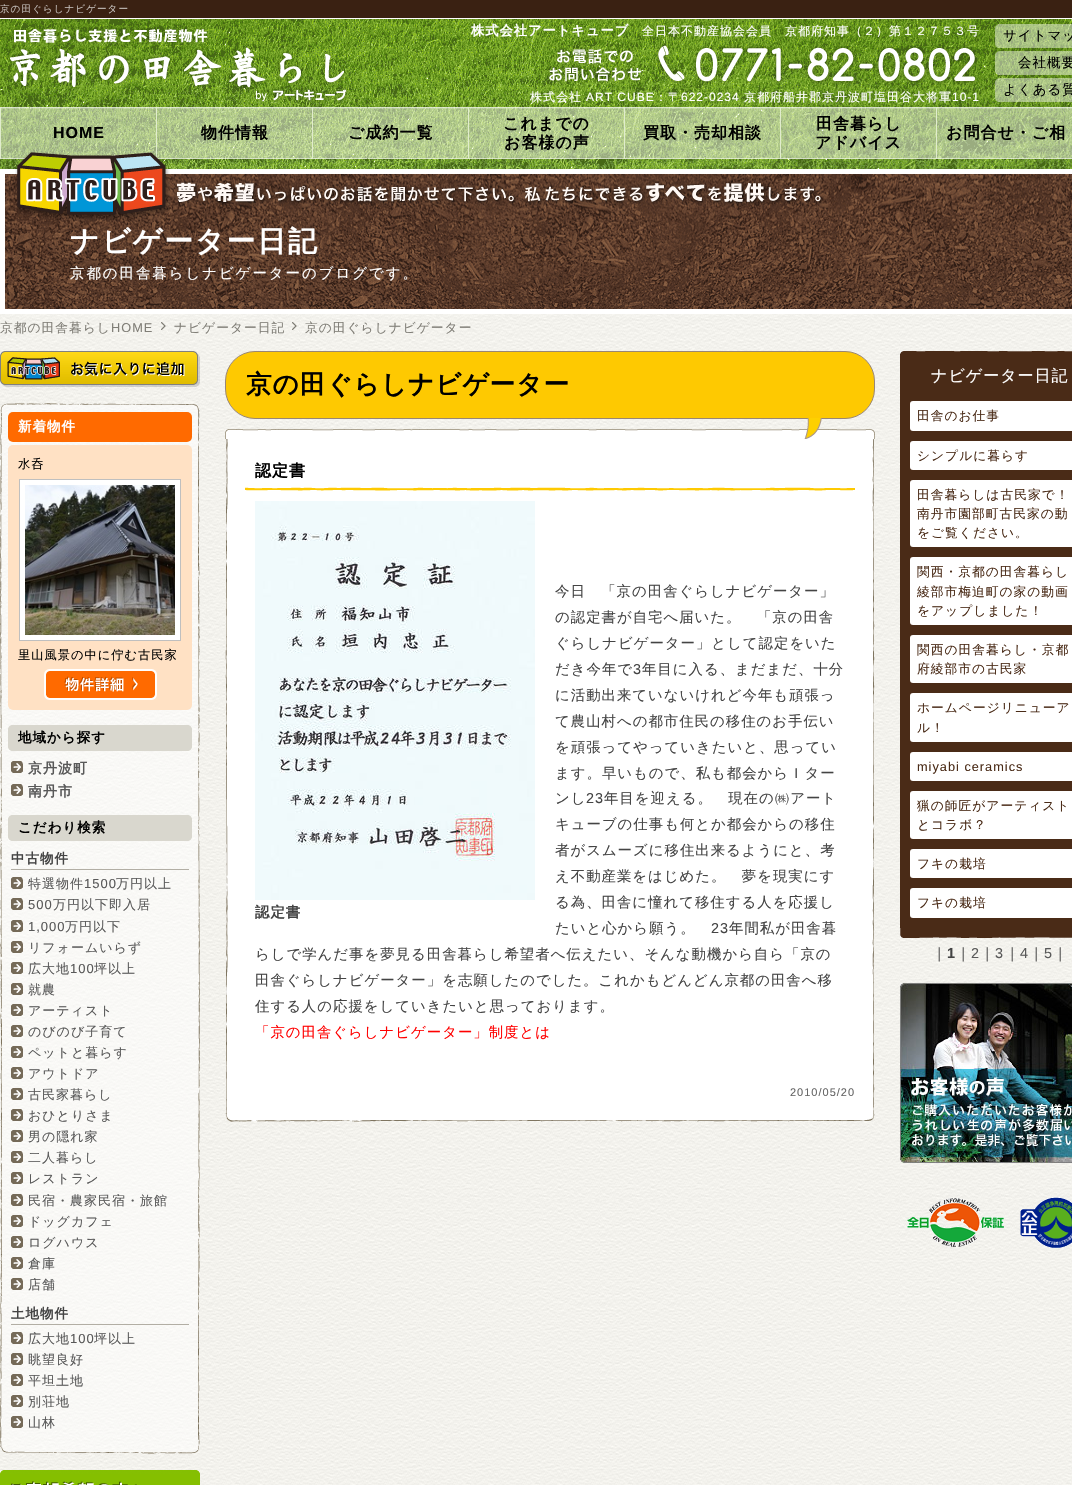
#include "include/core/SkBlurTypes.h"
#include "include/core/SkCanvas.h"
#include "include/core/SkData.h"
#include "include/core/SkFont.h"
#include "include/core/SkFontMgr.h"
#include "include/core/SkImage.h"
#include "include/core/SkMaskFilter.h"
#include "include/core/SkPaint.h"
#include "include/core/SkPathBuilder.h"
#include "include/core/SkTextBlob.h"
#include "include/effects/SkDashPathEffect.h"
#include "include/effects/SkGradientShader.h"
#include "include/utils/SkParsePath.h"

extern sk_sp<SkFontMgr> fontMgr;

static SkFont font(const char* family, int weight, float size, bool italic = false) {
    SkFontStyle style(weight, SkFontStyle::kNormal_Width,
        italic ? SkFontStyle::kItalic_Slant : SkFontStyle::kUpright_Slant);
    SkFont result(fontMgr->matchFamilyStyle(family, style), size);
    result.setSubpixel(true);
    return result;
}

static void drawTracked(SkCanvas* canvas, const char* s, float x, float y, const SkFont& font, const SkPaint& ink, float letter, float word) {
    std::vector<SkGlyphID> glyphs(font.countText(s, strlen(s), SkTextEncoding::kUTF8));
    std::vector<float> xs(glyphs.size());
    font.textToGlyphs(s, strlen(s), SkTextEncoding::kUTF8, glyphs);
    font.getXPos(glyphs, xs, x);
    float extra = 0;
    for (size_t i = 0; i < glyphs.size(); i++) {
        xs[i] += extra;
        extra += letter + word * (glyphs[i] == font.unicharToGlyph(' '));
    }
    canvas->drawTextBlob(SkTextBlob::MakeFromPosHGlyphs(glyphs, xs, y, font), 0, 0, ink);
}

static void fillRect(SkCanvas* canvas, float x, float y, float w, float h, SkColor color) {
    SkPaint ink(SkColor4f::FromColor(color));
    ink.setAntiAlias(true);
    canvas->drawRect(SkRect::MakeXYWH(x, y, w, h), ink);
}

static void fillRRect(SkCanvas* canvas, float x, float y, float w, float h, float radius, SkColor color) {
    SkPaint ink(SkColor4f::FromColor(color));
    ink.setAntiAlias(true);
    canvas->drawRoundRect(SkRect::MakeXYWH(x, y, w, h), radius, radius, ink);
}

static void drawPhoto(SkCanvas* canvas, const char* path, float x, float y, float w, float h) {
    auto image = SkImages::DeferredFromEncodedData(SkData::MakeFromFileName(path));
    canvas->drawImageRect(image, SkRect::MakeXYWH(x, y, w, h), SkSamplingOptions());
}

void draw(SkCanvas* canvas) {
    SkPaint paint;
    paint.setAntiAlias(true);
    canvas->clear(0xFFFFFFFF);
    drawPhoto(canvas, "assets/img1.png", 0, 314, 1072, 1171);
    fillRect(canvas, 0, 0, 1072, 18, 0xFF3A2112);
    SkFont font1 = font("WenQuanYi Zen Hei", 500, 9.6f);
    paint.setColor(0xFFC4BEBA);
    drawTracked(canvas, "京の田ぐらしナビゲーター", 0, 12, font1, paint, 1, 0);
    drawPhoto(canvas, "assets/img2.png", 0, 19, 1072, 150);
    drawPhoto(canvas, "assets/img3.png", 8, 26, 342, 77);
    SkFont font2 = font("WenQuanYi Zen Hei", 700, 13.25f);
    paint.setColor(0xFFFFFFFF);
    drawTracked(canvas, "株式会社アートキューブ", 471, 35, font2, paint, 1, 0);
    SkFont font3 = font("WenQuanYi Zen Hei", 500, 12);
    drawTracked(canvas, "全日本不動産協会会員　京都府知事（２）第１２７５３号", 642, 35, font3, paint, 1, 0);
    drawPhoto(canvas, "assets/img4.png", 547, 43, 431, 42);
    drawTracked(canvas, "株式会社", 530, 101, font3, paint, 1, 0);
    SkFont font4 = font("Liberation Sans", 400, 12);
    drawTracked(canvas, "ART CUBE", 586, 101, font4, paint, 1, 0);
    drawTracked(canvas, "：〒", 655, 101, font3, paint, 1, 0);
    drawTracked(canvas, "622-0234", 681, 101, font4, paint, 1, 0);
    drawTracked(canvas, "京都府船井郡京丹波町塩田谷大将軍", 744, 101, font3, paint, 1, 0);
    drawTracked(canvas, "10-1", 952, 101, font4, paint, 1, 0);
    drawPhoto(canvas, "assets/img5.png", 995, 24, 77, 24);
    SkFont font5 = font("WenQuanYi Zen Hei", 500, 13.5f);
    paint.setColor(0xFF000000);
    drawTracked(canvas, "サイトマッ", 1003, 40, font5, paint, 1, 0);
    drawPhoto(canvas, "assets/img6.png", 995, 51, 77, 24);
    drawTracked(canvas, "会社概要", 1018, 67, font5, paint, 1, 0);
    drawPhoto(canvas, "assets/img7.png", 995, 78, 77, 24);
    drawTracked(canvas, "よくある質", 1003, 94, font5, paint, 1, 0);
    drawPhoto(canvas, "assets/img10.png", 1, 107, 1071, 52);
    fillRect(canvas, 156, 107, 1, 52, 0xFFE0ECCC);
    drawPhoto(canvas, "assets/img11.png", 5, 174, 1067, 135);
    drawPhoto(canvas, "assets/img8.png", 15, 152, 155, 69);
    drawPhoto(canvas, "assets/img9.png", 174, 180, 651, 27);
    fillRect(canvas, 0, 107, 1, 52, 0xFFE0ECCC);
    SkFont font6 = font("Liberation Sans", 700, 16);
    drawTracked(canvas, "HOME", 53, 138, font6, paint, 1, 0);
    fillRect(canvas, 312, 107, 1, 52, 0xFFE0ECCC);
    SkFont font7 = font("WenQuanYi Zen Hei", 700, 16);
    drawTracked(canvas, "物件情報", 201, 138, font7, paint, 1, 0);
    fillRect(canvas, 468, 107, 1, 52, 0xFFE0ECCC);
    drawTracked(canvas, "ご成約一覧", 348, 138, font7, paint, 1, 0);
    fillRect(canvas, 624, 107, 1, 52, 0xFFE0ECCC);
    drawTracked(canvas, "これまでの", 503, 129, font7, paint, 1, 0);
    drawTracked(canvas, "お客様の声", 504, 148, font7, paint, 1, 0);
    fillRect(canvas, 780, 107, 1, 52, 0xFFE0ECCC);
    drawTracked(canvas, "買取・売却相談", 643, 138, font7, paint, 1, 0);
    fillRect(canvas, 936, 107, 1, 52, 0xFFE0ECCC);
    drawTracked(canvas, "田舎暮らし", 816, 129, font7, paint, 1, 0);
    drawTracked(canvas, "アドバイス", 815, 148, font7, paint, 1, 0);
    drawTracked(canvas, "お問合せ・ご相", 946, 138, font7, paint, 1, 0);
    SkFont font8 = font("WenQuanYi Zen Hei", 700, 28.75f);
    paint.setColor(0xFFFFFFFF);
    drawTracked(canvas, "ナビゲーター日記", 70, 251, font8, paint, 2, 0);
    SkFont font9 = font("WenQuanYi Zen Hei", 500, 14.4f);
    drawTracked(canvas, "京都の田舎暮らしナビゲーターのブログです。", 70, 278, font9, paint, 2, 0);
    SkFont font10 = font("WenQuanYi Zen Hei", 500, 12.75f);
    paint.setColor(0xFF807E77);
    drawTracked(canvas, "京都の田舎暮らし", 0, 332, font10, paint, 1, 0);
    SkFont font11 = font("Liberation Sans", 400, 12.75f);
    drawTracked(canvas, "HOME", 111, 332, font11, paint, 1, 0);
    drawPhoto(canvas, "assets/img12.png", 159, 320, 9, 12);
    drawTracked(canvas, "ナビゲーター日記", 174, 332, font10, paint, 1, 0);
    drawPhoto(canvas, "assets/img13.png", 290, 321, 9, 11);
    drawTracked(canvas, "京の田ぐらしナビゲーター", 305, 332, font10, paint, 1, 0);
    drawPhoto(canvas, "assets/img14.png", 0, 351, 200, 36);
    drawPhoto(canvas, "assets/img15.png", 0, 410, 200, 1037);
    drawPhoto(canvas, "assets/img16.png", 0, 403, 200, 7);
    fillRRect(canvas, 8, 412, 184, 30, 5, 0xFFFF6A00);
    SkFont font12 = font("WenQuanYi Zen Hei", 700, 13.5f);
    paint.setColor(0xFFFFFFFF);
    drawTracked(canvas, "新着物件", 18, 431, font12, paint, 1, 0);
    fillRRect(canvas, 8, 445, 184, 265, 5, 0xFFFFE1C4);
    SkFont font13 = font("WenQuanYi Zen Hei", 500, 12.25f);
    paint.setColor(0xFF000000);
    drawTracked(canvas, "水呑", 18, 468, font13, paint, 1, 0);
    drawPhoto(canvas, "assets/img17.png", 25, 485, 150, 150);
    paint.setStroke(true);
    paint.setStrokeWidth(1);
    paint.setColor(0xFFBFBFBF);
    canvas->drawRect(SkRect::MakeXYWH(19.5f, 479.5f, 161, 161), paint);
    paint.setStrokeWidth(5);
    paint.setColor(0xFFFFFFFF);
    canvas->drawRect(SkRect::MakeXYWH(22.5f, 482.5f, 155, 155), paint);
    paint.setStroke(false);
    paint.setColor(0xFF000000);
    drawTracked(canvas, "里山風景の中に佇む古民家", 18, 659, font13, paint, 1, 0);
    drawPhoto(canvas, "assets/img18.png", 44, 669, 113, 31);
    drawPhoto(canvas, "assets/img19.png", 8, 725, 184, 26);
    drawTracked(canvas, "地域から探す", 18, 742, font12, paint, 1, 0);
    drawPhoto(canvas, "assets/img20.png", 11, 761, 12, 12);
    SkFont font14 = font("WenQuanYi Zen Hei", 700, 14);
    paint.setColor(0xFF595959);
    drawTracked(canvas, "京丹波町", 28, 773, font14, paint, 1, 0);
    drawPhoto(canvas, "assets/img20.png", 11, 784, 12, 12);
    drawTracked(canvas, "南丹市", 28, 796, font14, paint, 1, 0);
    drawPhoto(canvas, "assets/img19.png", 8, 815, 184, 26);
    paint.setColor(0xFF000000);
    drawTracked(canvas, "こだわり検索", 18, 832, font12, paint, 1, 0);
    fillRect(canvas, 11, 869, 178, 1, 0xFFB2AEA4);
    paint.setColor(0xFF444444);
    drawTracked(canvas, "中古物件", 11, 863, font12, paint, 1, 0);
    drawPhoto(canvas, "assets/img20.png", 11, 877, 12, 12);
    SkFont font15 = font("WenQuanYi Zen Hei", 500, 13);
    paint.setColor(0xFF595959);
    drawTracked(canvas, "特選物件", 28, 888, font15, paint, 1, 0);
    SkFont font16 = font("Liberation Sans", 400, 13);
    drawTracked(canvas, "1500", 84, 888, font16, paint, 1, 0);
    drawTracked(canvas, "万円以上", 116, 888, font15, paint, 1, 0);
    drawPhoto(canvas, "assets/img20.png", 11, 898, 12, 12);
    drawTracked(canvas, "500", 28, 909, font16, paint, 1, 0);
    drawTracked(canvas, "万円以下即入居", 53, 909, font15, paint, 1, 0);
    drawPhoto(canvas, "assets/img20.png", 11, 920, 12, 12);
    drawTracked(canvas, "1,000", 28, 931, font16, paint, 1, 0);
    drawTracked(canvas, "万円以下", 65, 931, font15, paint, 1, 0);
    drawPhoto(canvas, "assets/img20.png", 11, 941, 12, 12);
    drawTracked(canvas, "リフォームいらず", 28, 952, font15, paint, 1, 0);
    drawPhoto(canvas, "assets/img20.png", 11, 962, 12, 12);
    drawTracked(canvas, "広大地", 28, 973, font15, paint, 1, 0);
    drawTracked(canvas, "100", 70, 973, font16, paint, 1, 0);
    drawTracked(canvas, "坪以上", 94, 973, font15, paint, 1, 0);
    drawPhoto(canvas, "assets/img20.png", 11, 983, 12, 12);
    drawTracked(canvas, "就農", 28, 994, font15, paint, 1, 0);
    drawPhoto(canvas, "assets/img20.png", 11, 1004, 12, 12);
    drawTracked(canvas, "アーティスト", 28, 1015, font15, paint, 1, 0);
    drawPhoto(canvas, "assets/img20.png", 11, 1025, 12, 12);
    drawTracked(canvas, "のびのび子育て", 28, 1036, font15, paint, 1, 0);
    drawPhoto(canvas, "assets/img20.png", 11, 1046, 12, 12);
    drawTracked(canvas, "ペットと暮らす", 28, 1057, font15, paint, 1, 0);
    drawPhoto(canvas, "assets/img20.png", 11, 1067, 12, 12);
    drawTracked(canvas, "アウトドア", 28, 1078, font15, paint, 1, 0);
    drawPhoto(canvas, "assets/img20.png", 11, 1088, 12, 12);
    drawTracked(canvas, "古民家暮らし", 28, 1099, font15, paint, 1, 0);
    drawPhoto(canvas, "assets/img20.png", 11, 1109, 12, 12);
    drawTracked(canvas, "おひとりさま", 28, 1120, font15, paint, 1, 0);
    drawPhoto(canvas, "assets/img20.png", 11, 1130, 12, 12);
    drawTracked(canvas, "男の隠れ家", 28, 1141, font15, paint, 1, 0);
    drawPhoto(canvas, "assets/img20.png", 11, 1151, 12, 12);
    drawTracked(canvas, "二人暮らし", 28, 1162, font15, paint, 1, 0);
    drawPhoto(canvas, "assets/img20.png", 11, 1172, 12, 12);
    drawTracked(canvas, "レストラン", 28, 1183, font15, paint, 1, 0);
    drawPhoto(canvas, "assets/img20.png", 11, 1194, 12, 12);
    drawTracked(canvas, "民宿・農家民宿・旅館", 28, 1205, font15, paint, 1, 0);
    drawPhoto(canvas, "assets/img20.png", 11, 1215, 12, 12);
    drawTracked(canvas, "ドッグカフェ", 28, 1226, font15, paint, 1, 0);
    drawPhoto(canvas, "assets/img20.png", 11, 1236, 12, 12);
    drawTracked(canvas, "ログハウス", 28, 1247, font15, paint, 1, 0);
    drawPhoto(canvas, "assets/img20.png", 11, 1257, 12, 12);
    drawTracked(canvas, "倉庫", 28, 1268, font15, paint, 1, 0);
    drawPhoto(canvas, "assets/img20.png", 11, 1278, 12, 12);
    drawTracked(canvas, "店舗", 28, 1289, font15, paint, 1, 0);
    fillRect(canvas, 11, 1324, 178, 1, 0xFFB2AEA4);
    paint.setColor(0xFF444444);
    drawTracked(canvas, "土地物件", 11, 1318, font12, paint, 1, 0);
    drawPhoto(canvas, "assets/img20.png", 11, 1332, 12, 12);
    paint.setColor(0xFF595959);
    drawTracked(canvas, "広大地", 28, 1343, font15, paint, 1, 0);
    drawTracked(canvas, "100", 70, 1343, font16, paint, 1, 0);
    drawTracked(canvas, "坪以上", 94, 1343, font15, paint, 1, 0);
    drawPhoto(canvas, "assets/img20.png", 11, 1353, 12, 12);
    drawTracked(canvas, "眺望良好", 28, 1364, font15, paint, 1, 0);
    drawPhoto(canvas, "assets/img20.png", 11, 1374, 12, 12);
    drawTracked(canvas, "平坦土地", 28, 1385, font15, paint, 1, 0);
    drawPhoto(canvas, "assets/img20.png", 11, 1395, 12, 12);
    drawTracked(canvas, "別荘地", 28, 1406, font15, paint, 1, 0);
    drawPhoto(canvas, "assets/img20.png", 11, 1416, 12, 12);
    drawTracked(canvas, "山林", 28, 1427, font15, paint, 1, 0);
    drawPhoto(canvas, "assets/img21.png", 0, 1447, 200, 7);
    fillRect(canvas, 0, 1474, 200, 11, 0xFF85BF00);
    drawPhoto(canvas, "assets/img22.png", 0, 1470, 200, 4);
    drawPhoto(canvas, "assets/img23.png", 11, 1481, 126, 4);
    paint.setColor(0xFFFEC901);
    canvas->drawRoundRect(SkRect::MakeXYWH(225.5f, 351.5f, 649, 67), 29.5f, 29.5f, paint);
    paint.setStroke(true);
    paint.setStrokeWidth(1);
    paint.setColor(0xFF998675);
    canvas->drawRoundRect(SkRect::MakeXYWH(225.5f, 351.5f, 649, 67), 29.5f, 29.5f, paint);
    SkFont font17 = font("WenQuanYi Zen Hei", 700, 25.6f);
    paint.setStroke(false);
    paint.setColor(0xFF000000);
    drawTracked(canvas, "京の田ぐらしナビゲーター", 246, 393, font17, paint, 1, 0);
    drawPhoto(canvas, "assets/img24.png", 225, 418, 650, 21);
    drawPhoto(canvas, "assets/img25.png", 225, 439, 650, 675);
    drawPhoto(canvas, "assets/img26.png", 245, 487, 610, 4);
    drawTracked(canvas, "認定書", 255, 476, font7, paint, 1, 0);
    paint.setColor(0xFF444444);
    drawTracked(canvas, "今日　「京の田舎ぐらしナビゲーター」", 555, 596, font9, paint, 1, 0);
    drawTracked(canvas, "の認定書が自宅へ届いた。　「京の田舎", 555, 622, font9, paint, 1, 0);
    drawTracked(canvas, "ぐらしナビゲーター」として認定をいた", 555, 648, font9, paint, 1, 0);
    drawTracked(canvas, "だき今年で", 555, 674, font9, paint, 1, 0);
    SkFont font18 = font("Liberation Sans", 400, 14.4f);
    drawTracked(canvas, "3", 633, 674, font18, paint, 1, 0);
    drawTracked(canvas, "年目に入る、まだまだ、十分", 642, 674, font9, paint, 1, 0);
    drawTracked(canvas, "に活動出来ていないけれど今年も頑張っ", 555, 700, font9, paint, 1, 0);
    drawTracked(canvas, "て農山村への都市住民の移住のお手伝い", 555, 726, font9, paint, 1, 0);
    drawTracked(canvas, "を頑張ってやっていきたいと、思ってい", 555, 752, font9, paint, 1, 0);
    drawTracked(canvas, "ます。早いもので、私も都会からＩター", 555, 778, font9, paint, 1, 0);
    drawTracked(canvas, "ンし", 555, 803, font9, paint, 1, 0);
    drawTracked(canvas, "23", 586, 803, font18, paint, 1, 0);
    drawTracked(canvas, "年目を迎える。　現在の㈱アート", 604, 803, font9, paint, 1, 0);
    drawTracked(canvas, "キューブの仕事も何とか都会からの移住", 555, 829, font9, paint, 1, 0);
    drawTracked(canvas, "者がスムーズに移住出来るようにと、考", 555, 855, font9, paint, 1, 0);
    drawTracked(canvas, "え不動産業をはじめた。　夢を現実にす", 555, 881, font9, paint, 1, 0);
    drawTracked(canvas, "る為、田舎に憧れて移住する人を応援し", 555, 907, font9, paint, 1, 0);
    drawTracked(canvas, "たいと心から願う。", 555, 933, font9, paint, 1, 0);
    drawTracked(canvas, "23", 711, 933, font18, paint, 1, 0);
    drawTracked(canvas, "年間私が田舎暮", 729, 933, font9, paint, 1, 0);
    drawTracked(canvas, "らしで学んだ事を夢見る田舎暮らし希望者へ伝えたい、そんな動機から自ら「京の", 255, 959, font9, paint, 1, 0);
    drawTracked(canvas, "田舎ぐらしナビゲーター」を志願したのでした。これかもどんどん京都の田舎へ移", 255, 985, font9, paint, 1, 0);
    drawTracked(canvas, "住する人の応援をしていきたいと思っております。", 255, 1011, font9, paint, 1, 0);
    paint.setColor(0xFFFF0000);
    drawTracked(canvas, "「京の田舎ぐらしナビゲーター」制度とは", 255, 1037, font9, paint, 1, 0);
    drawPhoto(canvas, "assets/img27.png", 255, 501, 280, 399);
    SkFont font19 = font("WenQuanYi Zen Hei", 700, 14.4f);
    paint.setColor(0xFF444444);
    drawTracked(canvas, "認定書", 255, 917, font19, paint, 1, 0);
    SkFont font20 = font("Liberation Sans", 400, 11);
    paint.setColor(0xFF666666);
    drawTracked(canvas, "2010/05/20", 790, 1096, font20, paint, 1, 0);
    drawPhoto(canvas, "assets/img28.png", 225, 1114, 650, 8);
    fillRect(canvas, 900, 354, 172, 574, 0xFF4A2B17);
    drawPhoto(canvas, "assets/img29.png", 900, 351, 172, 3);
    SkFont font21 = font("WenQuanYi Zen Hei", 500, 16);
    paint.setColor(0xFFFFFFFF);
    drawTracked(canvas, "ナビゲーター日記", 931, 381, font21, paint, 1, 0);
    drawPhoto(canvas, "assets/img30.png", 900, 928, 172, 10);
    fillRRect(canvas, 910, 401, 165, 30, 3, 0xFFFFFFFF);
    paint.setColor(0xFF4A2B17);
    drawTracked(canvas, "田舎のお仕事", 917, 420, font10, paint, 1, 0);
    fillRRect(canvas, 910, 441, 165, 29, 3, 0xFFFFFFFF);
    drawTracked(canvas, "シンプルに暮らす", 917, 460, font10, paint, 1, 0);
    fillRRect(canvas, 910, 480, 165, 67, 3, 0xFFFFFFFF);
    drawTracked(canvas, "田舎暮らしは古民家で！", 917, 499, font10, paint, 1, 0);
    drawTracked(canvas, "南丹市園部町古民家の動", 917, 518, font10, paint, 1, 0);
    drawTracked(canvas, "をご覧ください。", 917, 537, font10, paint, 1, 0);
    fillRRect(canvas, 910, 557, 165, 68, 3, 0xFFFFFFFF);
    drawTracked(canvas, "関西・京都の田舎暮らし", 917, 576, font10, paint, 1, 0);
    drawTracked(canvas, "綾部市梅迫町の家の動画", 917, 596, font10, paint, 1, 0);
    drawTracked(canvas, "をアップしました！", 917, 615, font10, paint, 1, 0);
    fillRRect(canvas, 910, 635, 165, 48, 3, 0xFFFFFFFF);
    drawTracked(canvas, "関西の田舎暮らし・京都", 917, 654, font10, paint, 1, 0);
    drawTracked(canvas, "府綾部市の古民家", 917, 673, font10, paint, 1, 0);
    fillRRect(canvas, 910, 693, 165, 49, 3, 0xFFFFFFFF);
    drawTracked(canvas, "ホームページリニューア", 917, 712, font10, paint, 1, 0);
    drawTracked(canvas, "ル！", 917, 732, font10, paint, 1, 0);
    fillRRect(canvas, 910, 752, 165, 29, 3, 0xFFFFFFFF);
    drawTracked(canvas, "miyabi ceramics", 917, 771, font11, paint, 1, 0);
    fillRRect(canvas, 910, 791, 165, 48, 3, 0xFFFFFFFF);
    drawTracked(canvas, "猟の師匠がアーティスト", 917, 810, font10, paint, 1, 0);
    drawTracked(canvas, "とコラボ？", 917, 829, font10, paint, 1, 0);
    fillRRect(canvas, 910, 849, 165, 29, 3, 0xFFFFFFFF);
    drawTracked(canvas, "フキの栽培", 917, 868, font10, paint, 1, 0);
    fillRRect(canvas, 910, 888, 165, 30, 3, 0xFFFFFFFF);
    drawTracked(canvas, "フキの栽培", 917, 907, font10, paint, 1, 0);
    paint.setColor(0xFF444444);
    drawTracked(canvas, "｜", 932, 958, font9, paint, 1, 0);
    SkFont font22 = font("Liberation Sans", 700, 14.4f);
    drawTracked(canvas, "1", 947, 958, font22, paint, 1, 0);
    drawTracked(canvas, "｜", 956, 958, font9, paint, 1, 0);
    paint.setColor(0xFF595959);
    drawTracked(canvas, "2", 971, 958, font18, paint, 1, 0);
    paint.setColor(0xFF444444);
    drawTracked(canvas, "｜", 980, 958, font9, paint, 1, 0);
    paint.setColor(0xFF595959);
    drawTracked(canvas, "3", 995, 958, font18, paint, 1, 0);
    paint.setColor(0xFF444444);
    drawTracked(canvas, "｜", 1005, 958, font9, paint, 1, 0);
    paint.setColor(0xFF595959);
    drawTracked(canvas, "4", 1020, 958, font18, paint, 1, 0);
    paint.setColor(0xFF444444);
    drawTracked(canvas, "｜", 1029, 958, font9, paint, 1, 0);
    paint.setColor(0xFF595959);
    drawTracked(canvas, "5", 1044, 958, font18, paint, 1, 0);
    paint.setColor(0xFF444444);
    drawTracked(canvas, "｜", 1053, 958, font9, paint, 1, 0);
    drawPhoto(canvas, "assets/img31.png", 900, 983, 172, 180);
    drawPhoto(canvas, "assets/img32.png", 907, 1198, 97, 49);
    drawPhoto(canvas, "assets/img33.png", 1020, 1197, 52, 51);
}
